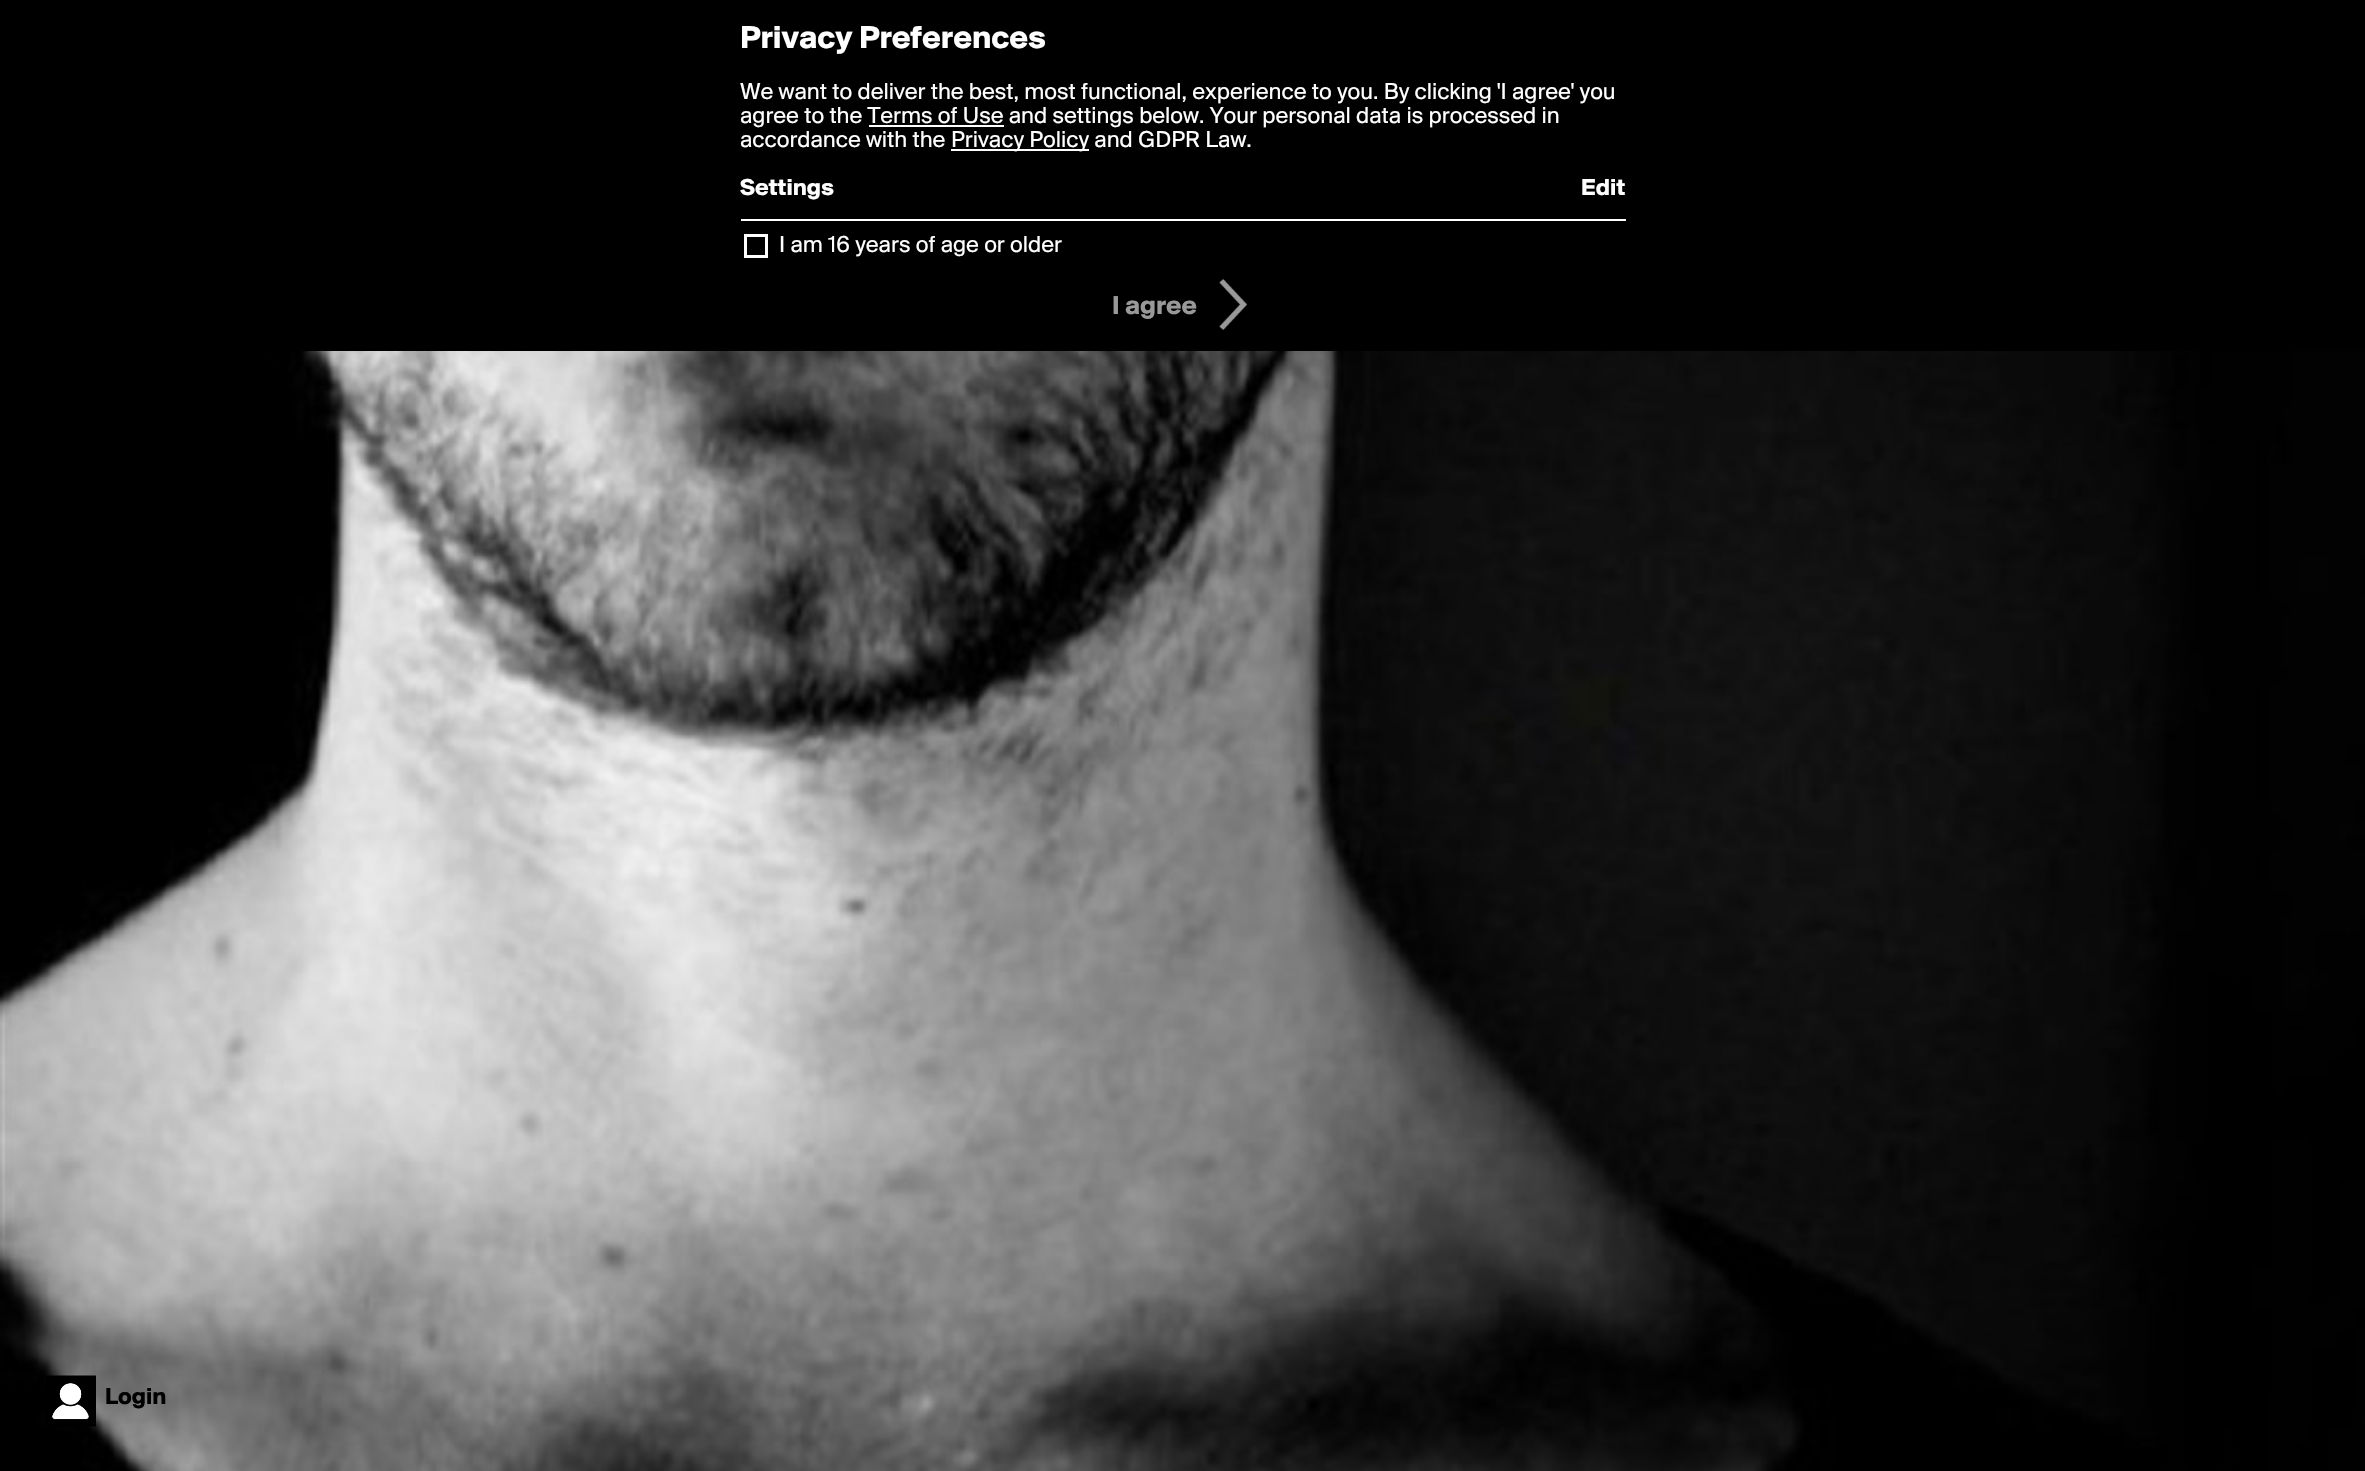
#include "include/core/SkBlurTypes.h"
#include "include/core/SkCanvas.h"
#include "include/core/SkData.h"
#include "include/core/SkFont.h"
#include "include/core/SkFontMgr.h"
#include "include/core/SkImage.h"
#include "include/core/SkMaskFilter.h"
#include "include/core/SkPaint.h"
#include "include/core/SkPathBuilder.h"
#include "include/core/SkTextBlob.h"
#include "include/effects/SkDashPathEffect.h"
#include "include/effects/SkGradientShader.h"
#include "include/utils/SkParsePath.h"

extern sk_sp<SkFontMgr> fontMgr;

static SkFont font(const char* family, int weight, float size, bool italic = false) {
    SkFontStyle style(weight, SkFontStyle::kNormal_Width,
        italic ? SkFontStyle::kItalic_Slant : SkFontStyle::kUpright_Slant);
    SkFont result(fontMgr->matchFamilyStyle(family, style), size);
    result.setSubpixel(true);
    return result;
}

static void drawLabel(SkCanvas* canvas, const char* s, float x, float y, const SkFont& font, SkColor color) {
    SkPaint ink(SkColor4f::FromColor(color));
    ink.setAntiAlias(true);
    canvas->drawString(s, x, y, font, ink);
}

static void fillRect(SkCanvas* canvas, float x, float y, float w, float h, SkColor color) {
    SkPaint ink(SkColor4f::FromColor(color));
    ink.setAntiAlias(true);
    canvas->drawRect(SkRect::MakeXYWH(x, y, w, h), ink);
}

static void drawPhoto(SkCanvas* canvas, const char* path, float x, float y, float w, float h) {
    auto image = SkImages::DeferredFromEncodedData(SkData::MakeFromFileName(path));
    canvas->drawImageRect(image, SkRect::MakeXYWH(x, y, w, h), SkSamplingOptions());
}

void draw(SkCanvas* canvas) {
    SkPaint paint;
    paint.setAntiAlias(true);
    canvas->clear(0xFFFFFFFF);
    fillRect(canvas, 0, 0, 2365, 351, 0xFF000000);
    SkFont font1 = font("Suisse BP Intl", 700, 33);
    drawLabel(canvas, "Privacy Preferences", 740, 48, font1, 0xFFFFFFFF);
    SkFont font2 = font("Suisse BP Intl", 400, 24);
    drawLabel(canvas, "We want to deliver the best, most functional, experience to you. By clicking 'I agree' you", 740, 99, font2, 0xFFFFFFFF);
    drawLabel(canvas, "agree to the Terms of Use and settings below. Your personal data is processed in", 740, 123, font2, 0xFFFFFFFF);
    fillRect(canvas, 869, 125, 135, 2, 0xFFFFFFFF);
    drawLabel(canvas, "accordance with the", 740, 147, font2, 0xFFFFFFFF);
    fillRect(canvas, 951, 149, 138, 2, 0xFFFFFFFF);
    drawLabel(canvas, "Privacy Policy and GDPR Law.", 951, 147, font2, 0xFFFFFFFF);
    SkFont font3 = font("Suisse BP Intl", 700, 24);
    drawLabel(canvas, "Settings", 740, 195, font3, 0xFFFFFFFF);
    drawLabel(canvas, "Edit", 1581, 195, font3, 0xFFFFFFFF);
    fillRect(canvas, 741, 219, 885, 2, 0xFFFFFFFF);
    paint.setStroke(true);
    paint.setStrokeWidth(3);
    paint.setColor(0xFFFFFFFF);
    canvas->drawRect(SkRect::MakeXYWH(745.5f, 235.5f, 21, 21), paint);
    drawLabel(canvas, "I am 16 years of age or older", 779, 252, font2, 0xFFFFFFFF);
    SkFont font4 = font("Suisse BP Intl", 700, 27);
    drawLabel(canvas, "I agree", 1112, 314, font4, 0xFF999999);
    drawPhoto(canvas, "assets/img1.png", 1219, 279, 29, 51);
    drawPhoto(canvas, "assets/img2.png", 0, 351, 2365, 1120);
    drawPhoto(canvas, "assets/img3.png", 46, 1375, 50, 52);
    drawLabel(canvas, "Login", 105, 1404, font3, 0xFF000000);
}
